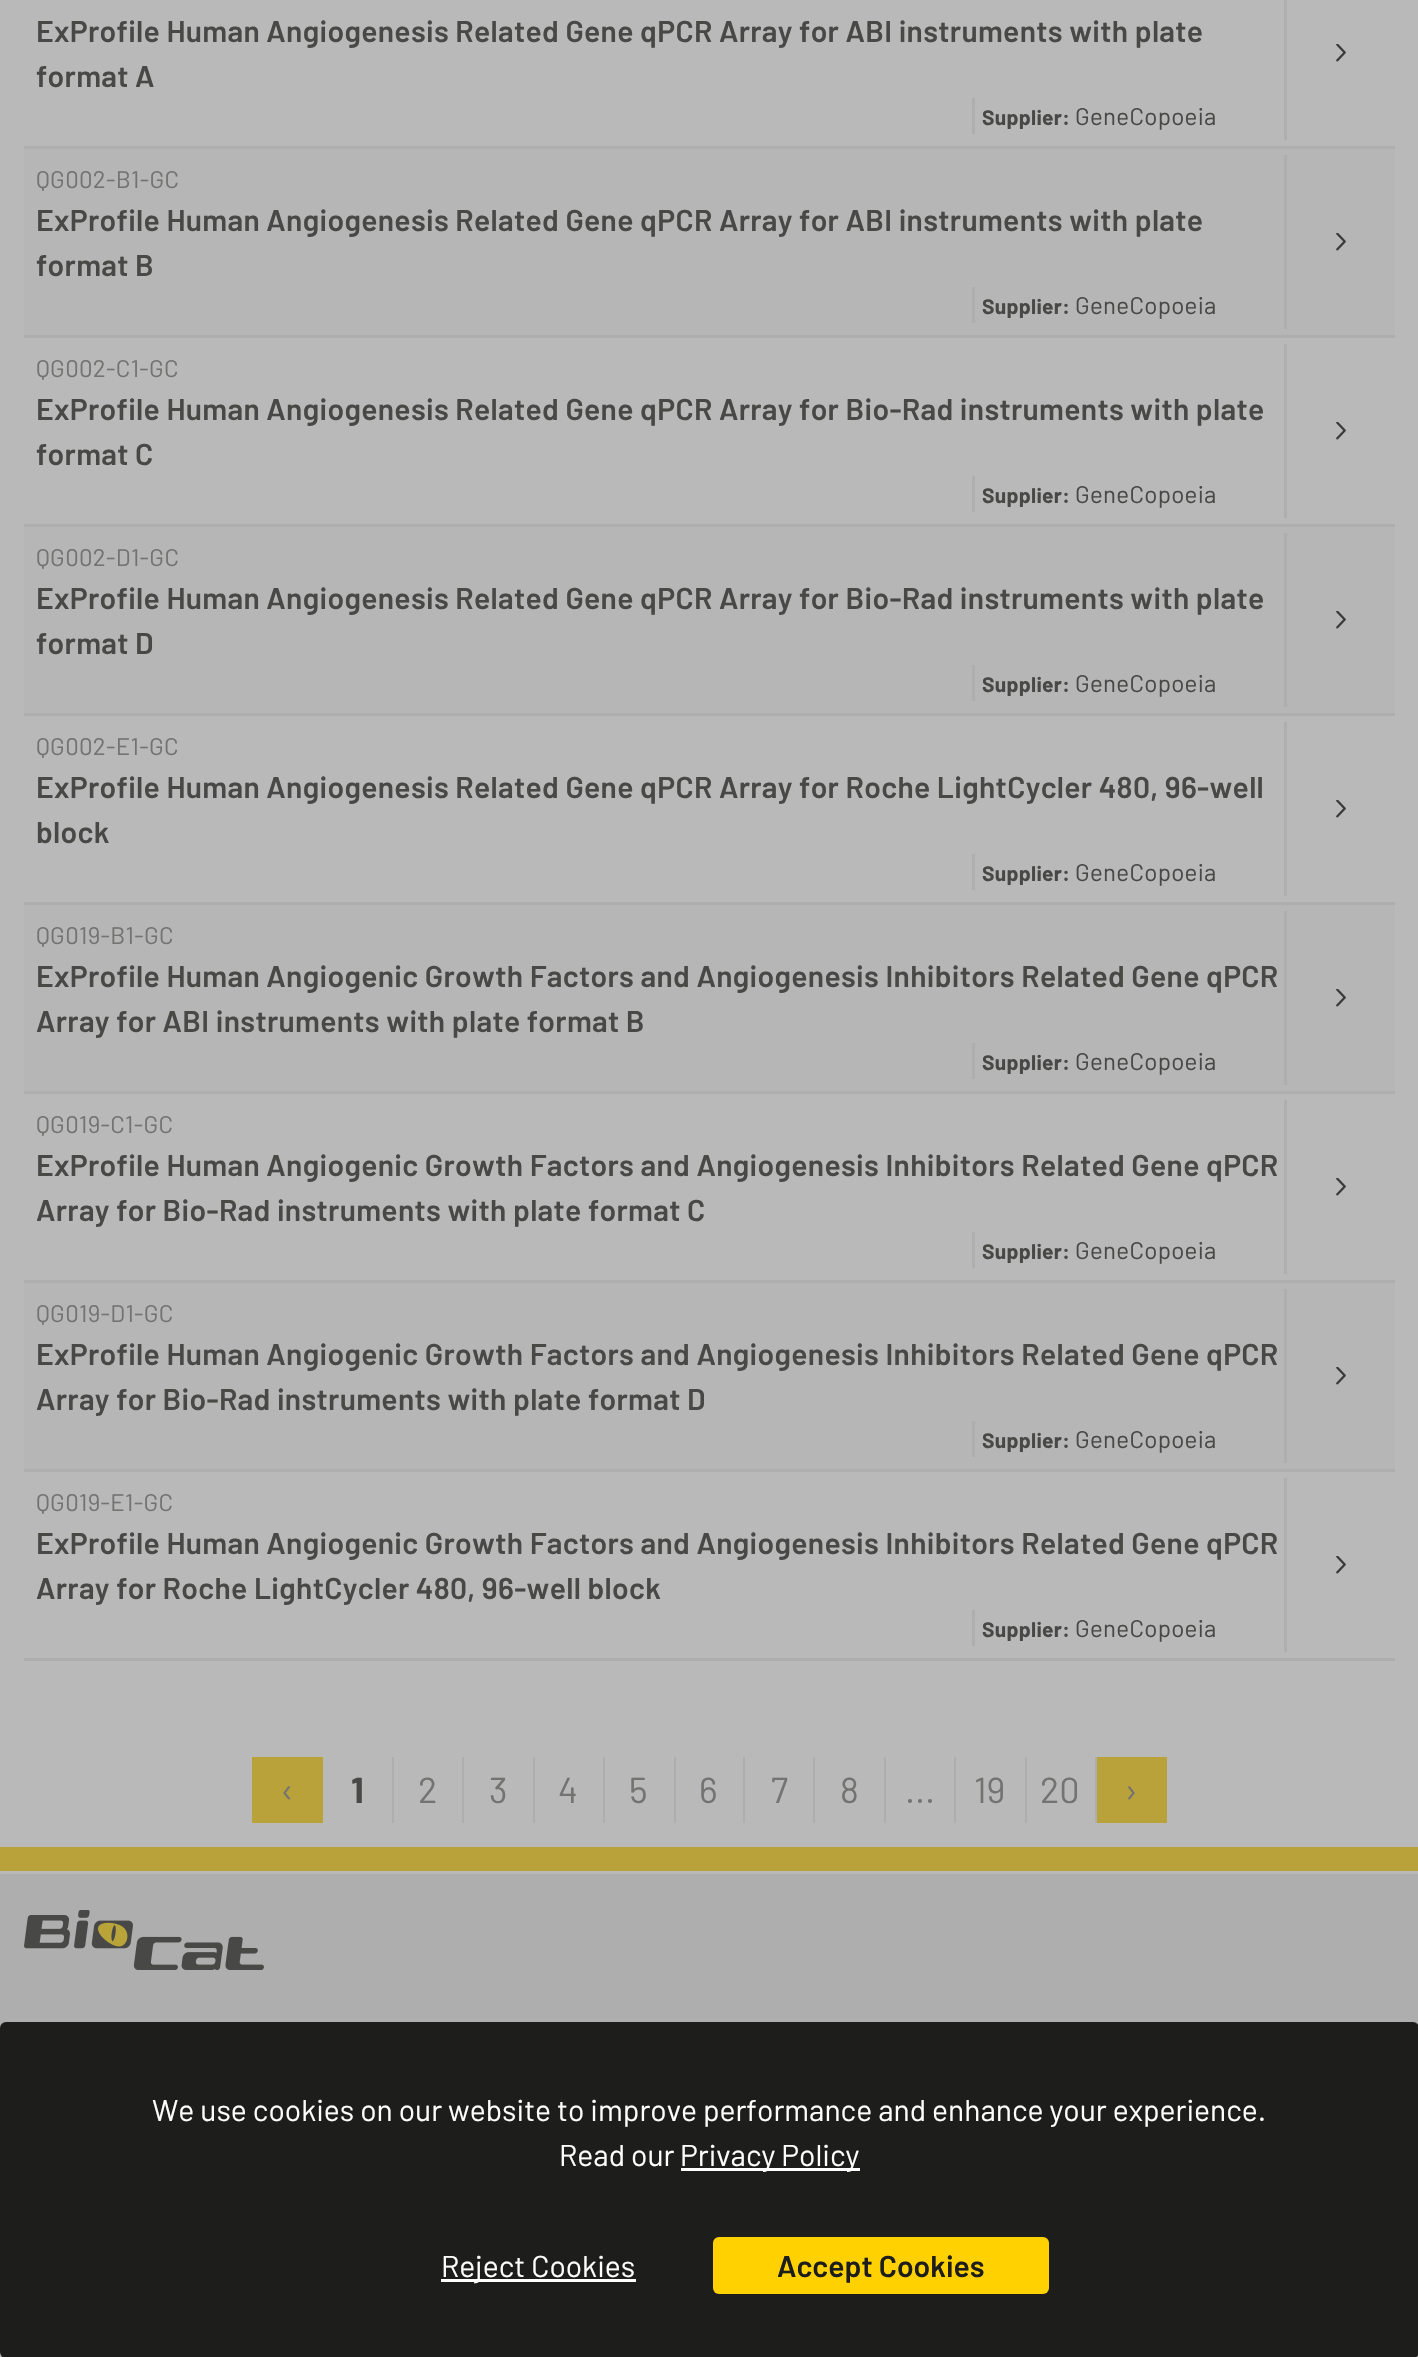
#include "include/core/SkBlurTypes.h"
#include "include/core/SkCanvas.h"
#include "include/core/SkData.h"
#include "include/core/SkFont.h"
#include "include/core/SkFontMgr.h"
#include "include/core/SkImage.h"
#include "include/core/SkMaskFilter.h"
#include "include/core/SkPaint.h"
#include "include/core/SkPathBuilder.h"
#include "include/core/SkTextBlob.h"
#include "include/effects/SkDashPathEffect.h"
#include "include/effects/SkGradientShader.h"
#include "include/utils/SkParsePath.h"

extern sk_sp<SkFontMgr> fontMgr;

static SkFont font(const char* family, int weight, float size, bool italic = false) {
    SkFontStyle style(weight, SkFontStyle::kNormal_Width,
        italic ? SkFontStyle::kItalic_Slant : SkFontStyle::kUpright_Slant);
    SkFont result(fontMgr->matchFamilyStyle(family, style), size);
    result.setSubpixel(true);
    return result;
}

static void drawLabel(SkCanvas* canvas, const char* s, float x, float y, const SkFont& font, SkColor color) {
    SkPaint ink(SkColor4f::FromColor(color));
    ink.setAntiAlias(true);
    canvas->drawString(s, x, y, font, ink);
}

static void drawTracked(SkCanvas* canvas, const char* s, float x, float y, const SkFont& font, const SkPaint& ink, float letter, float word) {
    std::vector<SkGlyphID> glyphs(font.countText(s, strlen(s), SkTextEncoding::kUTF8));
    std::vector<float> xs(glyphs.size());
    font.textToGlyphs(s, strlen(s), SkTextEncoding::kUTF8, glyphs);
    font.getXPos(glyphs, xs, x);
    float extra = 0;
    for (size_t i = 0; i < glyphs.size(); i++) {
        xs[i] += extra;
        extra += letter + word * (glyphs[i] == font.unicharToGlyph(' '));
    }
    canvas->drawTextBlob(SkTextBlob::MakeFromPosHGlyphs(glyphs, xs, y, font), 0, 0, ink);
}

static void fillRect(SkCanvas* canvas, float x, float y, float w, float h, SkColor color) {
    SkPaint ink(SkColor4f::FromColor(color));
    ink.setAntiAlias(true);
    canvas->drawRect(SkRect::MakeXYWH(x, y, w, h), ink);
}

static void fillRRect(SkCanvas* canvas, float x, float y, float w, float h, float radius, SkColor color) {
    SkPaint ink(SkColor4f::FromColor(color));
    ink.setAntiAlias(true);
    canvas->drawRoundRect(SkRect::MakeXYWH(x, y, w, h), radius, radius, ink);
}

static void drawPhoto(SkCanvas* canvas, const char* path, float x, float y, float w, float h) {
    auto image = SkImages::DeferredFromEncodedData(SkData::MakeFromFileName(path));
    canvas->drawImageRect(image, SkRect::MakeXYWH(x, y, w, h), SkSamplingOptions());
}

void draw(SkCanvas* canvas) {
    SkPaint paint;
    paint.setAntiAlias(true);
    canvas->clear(0xFFB9B9B9);
    fillRect(canvas, 24, 146, 1371, 3, 0xFFAEAEAE);
    SkFont font1 = font("Barlow", 600, 30);
    paint.setColor(0xFF484847);
    drawTracked(canvas, "ExProfile Human Angiogenesis Related Gene qPCR Array for ABI instruments with plate", 36, 42, font1, paint, 0.3f, 0);
    drawTracked(canvas, "format A", 36, 87, font1, paint, 0.3f, 0);
    fillRect(canvas, 972, 98, 3, 36, 0xFFAEAEAE);
    SkFont font2 = font("Barlow", 700, 21);
    drawTracked(canvas, "Supplier:", 982, 125, font2, paint, 0.3f, 0);
    SkFont font3 = font("Barlow", 400, 24);
    drawTracked(canvas, "GeneCopoeia", 1075, 125, font3, paint, 0.3f, 0);
    fillRect(canvas, 1284, 0, 3, 140, 0xFFAEAEAE);
    drawPhoto(canvas, "assets/img1.png", 1336, 44, 10, 18);
    fillRect(canvas, 24, 149, 1371, 186, 0xFFB6B6B6);
    fillRect(canvas, 24, 335, 1371, 3, 0xFFAEAEAE);
    paint.setColor(0xFF737372);
    drawTracked(canvas, "QG002-B1-GC", 36, 188, font3, paint, 0.3f, 0);
    paint.setColor(0xFF484847);
    drawTracked(canvas, "ExProfile Human Angiogenesis Related Gene qPCR Array for ABI instruments with plate", 36, 231, font1, paint, 0.3f, 0);
    drawTracked(canvas, "format B", 36, 276, font1, paint, 0.3f, 0);
    fillRect(canvas, 972, 287, 3, 36, 0xFFAEAEAE);
    drawTracked(canvas, "Supplier:", 982, 314, font2, paint, 0.3f, 0);
    drawTracked(canvas, "GeneCopoeia", 1075, 314, font3, paint, 0.3f, 0);
    fillRect(canvas, 1284, 155, 3, 174, 0xFFAEAEAE);
    drawPhoto(canvas, "assets/img2.png", 1336, 233, 10, 18);
    fillRect(canvas, 24, 524, 1371, 3, 0xFFAEAEAE);
    paint.setColor(0xFF737372);
    drawTracked(canvas, "QG002-C1-GC", 36, 377, font3, paint, 0.3f, 0);
    paint.setColor(0xFF484847);
    drawTracked(canvas, "ExProfile Human Angiogenesis Related Gene qPCR Array for Bio-Rad instruments with plate", 36, 420, font1, paint, 0.3f, 0);
    drawTracked(canvas, "format C", 36, 465, font1, paint, 0.3f, 0);
    fillRect(canvas, 972, 476, 3, 36, 0xFFAEAEAE);
    drawTracked(canvas, "Supplier:", 982, 503, font2, paint, 0.3f, 0);
    drawTracked(canvas, "GeneCopoeia", 1075, 503, font3, paint, 0.3f, 0);
    fillRect(canvas, 1284, 344, 3, 174, 0xFFAEAEAE);
    drawPhoto(canvas, "assets/img1.png", 1336, 422, 10, 18);
    fillRect(canvas, 24, 527, 1371, 186, 0xFFB6B6B6);
    fillRect(canvas, 24, 713, 1371, 3, 0xFFAEAEAE);
    paint.setColor(0xFF737372);
    drawTracked(canvas, "QG002-D1-GC", 36, 566, font3, paint, 0.3f, 0);
    paint.setColor(0xFF484847);
    drawTracked(canvas, "ExProfile Human Angiogenesis Related Gene qPCR Array for Bio-Rad instruments with plate", 36, 609, font1, paint, 0.3f, 0);
    drawTracked(canvas, "format D", 36, 654, font1, paint, 0.3f, 0);
    fillRect(canvas, 972, 665, 3, 36, 0xFFAEAEAE);
    drawTracked(canvas, "Supplier:", 982, 692, font2, paint, 0.3f, 0);
    drawTracked(canvas, "GeneCopoeia", 1075, 692, font3, paint, 0.3f, 0);
    fillRect(canvas, 1284, 533, 3, 174, 0xFFAEAEAE);
    drawPhoto(canvas, "assets/img2.png", 1336, 611, 10, 18);
    fillRect(canvas, 24, 902, 1371, 3, 0xFFAEAEAE);
    paint.setColor(0xFF737372);
    drawTracked(canvas, "QG002-E1-GC", 36, 755, font3, paint, 0.3f, 0);
    paint.setColor(0xFF484847);
    drawTracked(canvas, "ExProfile Human Angiogenesis Related Gene qPCR Array for Roche LightCycler 480, 96-well", 36, 798, font1, paint, 0.3f, 0);
    drawTracked(canvas, "block", 36, 843, font1, paint, 0.3f, 0);
    fillRect(canvas, 972, 854, 3, 36, 0xFFAEAEAE);
    drawTracked(canvas, "Supplier:", 982, 881, font2, paint, 0.3f, 0);
    drawTracked(canvas, "GeneCopoeia", 1075, 881, font3, paint, 0.3f, 0);
    fillRect(canvas, 1284, 722, 3, 174, 0xFFAEAEAE);
    drawPhoto(canvas, "assets/img1.png", 1336, 800, 10, 18);
    fillRect(canvas, 24, 905, 1371, 186, 0xFFB6B6B6);
    fillRect(canvas, 24, 1091, 1371, 3, 0xFFAEAEAE);
    paint.setColor(0xFF737372);
    drawTracked(canvas, "QG019-B1-GC", 36, 944, font3, paint, 0.3f, 0);
    paint.setColor(0xFF484847);
    drawTracked(canvas, "ExProfile Human Angiogenic Growth Factors and Angiogenesis Inhibitors Related Gene qPCR", 36, 987, font1, paint, 0.3f, 0);
    drawTracked(canvas, "Array for ABI instruments with plate format B", 36, 1032, font1, paint, 0.3f, 0);
    fillRect(canvas, 972, 1043, 3, 36, 0xFFAEAEAE);
    drawTracked(canvas, "Supplier:", 982, 1070, font2, paint, 0.3f, 0);
    drawTracked(canvas, "GeneCopoeia", 1075, 1070, font3, paint, 0.3f, 0);
    fillRect(canvas, 1284, 911, 3, 174, 0xFFAEAEAE);
    drawPhoto(canvas, "assets/img2.png", 1336, 989, 10, 18);
    fillRect(canvas, 24, 1280, 1371, 3, 0xFFAEAEAE);
    paint.setColor(0xFF737372);
    drawTracked(canvas, "QG019-C1-GC", 36, 1133, font3, paint, 0.3f, 0);
    paint.setColor(0xFF484847);
    drawTracked(canvas, "ExProfile Human Angiogenic Growth Factors and Angiogenesis Inhibitors Related Gene qPCR", 36, 1176, font1, paint, 0.3f, 0);
    drawTracked(canvas, "Array for Bio-Rad instruments with plate format C", 36, 1221, font1, paint, 0.3f, 0);
    fillRect(canvas, 972, 1232, 3, 36, 0xFFAEAEAE);
    drawTracked(canvas, "Supplier:", 982, 1259, font2, paint, 0.3f, 0);
    drawTracked(canvas, "GeneCopoeia", 1075, 1259, font3, paint, 0.3f, 0);
    fillRect(canvas, 1284, 1100, 3, 174, 0xFFAEAEAE);
    drawPhoto(canvas, "assets/img1.png", 1336, 1178, 10, 18);
    fillRect(canvas, 24, 1283, 1371, 186, 0xFFB6B6B6);
    fillRect(canvas, 24, 1469, 1371, 3, 0xFFAEAEAE);
    paint.setColor(0xFF737372);
    drawTracked(canvas, "QG019-D1-GC", 36, 1322, font3, paint, 0.3f, 0);
    paint.setColor(0xFF484847);
    drawTracked(canvas, "ExProfile Human Angiogenic Growth Factors and Angiogenesis Inhibitors Related Gene qPCR", 36, 1365, font1, paint, 0.3f, 0);
    drawTracked(canvas, "Array for Bio-Rad instruments with plate format D", 36, 1410, font1, paint, 0.3f, 0);
    fillRect(canvas, 972, 1421, 3, 36, 0xFFAEAEAE);
    drawTracked(canvas, "Supplier:", 982, 1448, font2, paint, 0.3f, 0);
    drawTracked(canvas, "GeneCopoeia", 1075, 1448, font3, paint, 0.3f, 0);
    fillRect(canvas, 1284, 1289, 3, 174, 0xFFAEAEAE);
    drawPhoto(canvas, "assets/img2.png", 1336, 1367, 10, 18);
    fillRect(canvas, 24, 1658, 1371, 3, 0xFFAEAEAE);
    paint.setColor(0xFF737372);
    drawTracked(canvas, "QG019-E1-GC", 36, 1511, font3, paint, 0.3f, 0);
    paint.setColor(0xFF484847);
    drawTracked(canvas, "ExProfile Human Angiogenic Growth Factors and Angiogenesis Inhibitors Related Gene qPCR", 36, 1554, font1, paint, 0.3f, 0);
    drawTracked(canvas, "Array for Roche LightCycler 480, 96-well block", 36, 1599, font1, paint, 0.3f, 0);
    fillRect(canvas, 972, 1610, 3, 36, 0xFFAEAEAE);
    drawTracked(canvas, "Supplier:", 982, 1637, font2, paint, 0.3f, 0);
    drawTracked(canvas, "GeneCopoeia", 1075, 1637, font3, paint, 0.3f, 0);
    fillRect(canvas, 1284, 1478, 3, 174, 0xFFAEAEAE);
    drawPhoto(canvas, "assets/img1.png", 1336, 1556, 10, 18);
    fillRect(canvas, 252, 1757, 71, 66, 0xFFB9A23A);
    SkFont font4 = font("Barlow", 400, 36);
    drawLabel(canvas, "‹", 281, 1803, font4, 0xFF737372);
    fillRect(canvas, 392, 1757, 2, 66, 0xFFAEAEAE);
    SkFont font5 = font("Barlow", 700, 36);
    drawLabel(canvas, "1", 351, 1803, font5, 0xFF484847);
    fillRect(canvas, 462, 1757, 2, 66, 0xFFAEAEAE);
    drawLabel(canvas, "2", 418, 1803, font4, 0xFF737372);
    fillRect(canvas, 533, 1757, 2, 66, 0xFFAEAEAE);
    drawLabel(canvas, "3", 489, 1803, font4, 0xFF737372);
    fillRect(canvas, 603, 1757, 2, 66, 0xFFAEAEAE);
    drawLabel(canvas, "4", 558, 1803, font4, 0xFF737372);
    fillRect(canvas, 674, 1757, 2, 66, 0xFFAEAEAE);
    drawLabel(canvas, "5", 629, 1803, font4, 0xFF737372);
    fillRect(canvas, 743, 1757, 2, 66, 0xFFAEAEAE);
    drawLabel(canvas, "6", 699, 1803, font4, 0xFF737372);
    fillRect(canvas, 813, 1757, 2, 66, 0xFFAEAEAE);
    drawLabel(canvas, "7", 771, 1803, font4, 0xFF737372);
    fillRect(canvas, 884, 1757, 2, 66, 0xFFAEAEAE);
    drawLabel(canvas, "8", 840, 1803, font4, 0xFF737372);
    fillRect(canvas, 1025, 1757, 2, 66, 0xFFAEAEAE);
    drawLabel(canvas, "19", 974, 1803, font4, 0xFF737372);
    fillRect(canvas, 1095, 1757, 2, 66, 0xFFAEAEAE);
    drawLabel(canvas, "20", 1040, 1803, font4, 0xFF737372);
    fillRect(canvas, 1097, 1757, 70, 66, 0xFFB9A23A);
    drawLabel(canvas, "›", 1124, 1803, font4, 0xFF737372);
    fillRect(canvas, 954, 1757, 2, 66, 0xFFAEAEAE);
    drawLabel(canvas, "...", 905, 1803, font4, 0xFF737372);
    fillRect(canvas, 0, 1847, 1418, 24, 0xFFB9A23A);
    fillRect(canvas, 0, 1874, 1418, 483, 0xFFAEAEAE);
    drawPhoto(canvas, "assets/img3.png", 24, 1910, 240, 60);
    fillRRect(canvas, 0, 2022, 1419, 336, 6, 0xFF1D1D1B);
    SkFont font6 = font("Barlow", 400, 30);
    drawLabel(canvas, "We use cookies on our website to improve performance and enhance your experience.", 152, 2121, font6, 0xFFFFFFFF);
    drawLabel(canvas, "Read our", 559, 2166, font6, 0xFFFFFFFF);
    fillRect(canvas, 681, 2168, 179, 3, 0xFFFFFFFF);
    drawLabel(canvas, "Privacy Policy", 680, 2166, font6, 0xFFFFFFFF);
    fillRect(canvas, 441, 2279, 195, 3, 0xFFFFFFFF);
    drawLabel(canvas, "Reject Cookies", 441, 2277, font6, 0xFFFFFFFF);
    fillRRect(canvas, 713, 2237, 336, 57, 6, 0xFFFFD100);
    drawLabel(canvas, "Accept Cookies", 777, 2277, font1, 0xFF1D1D1B);
}
